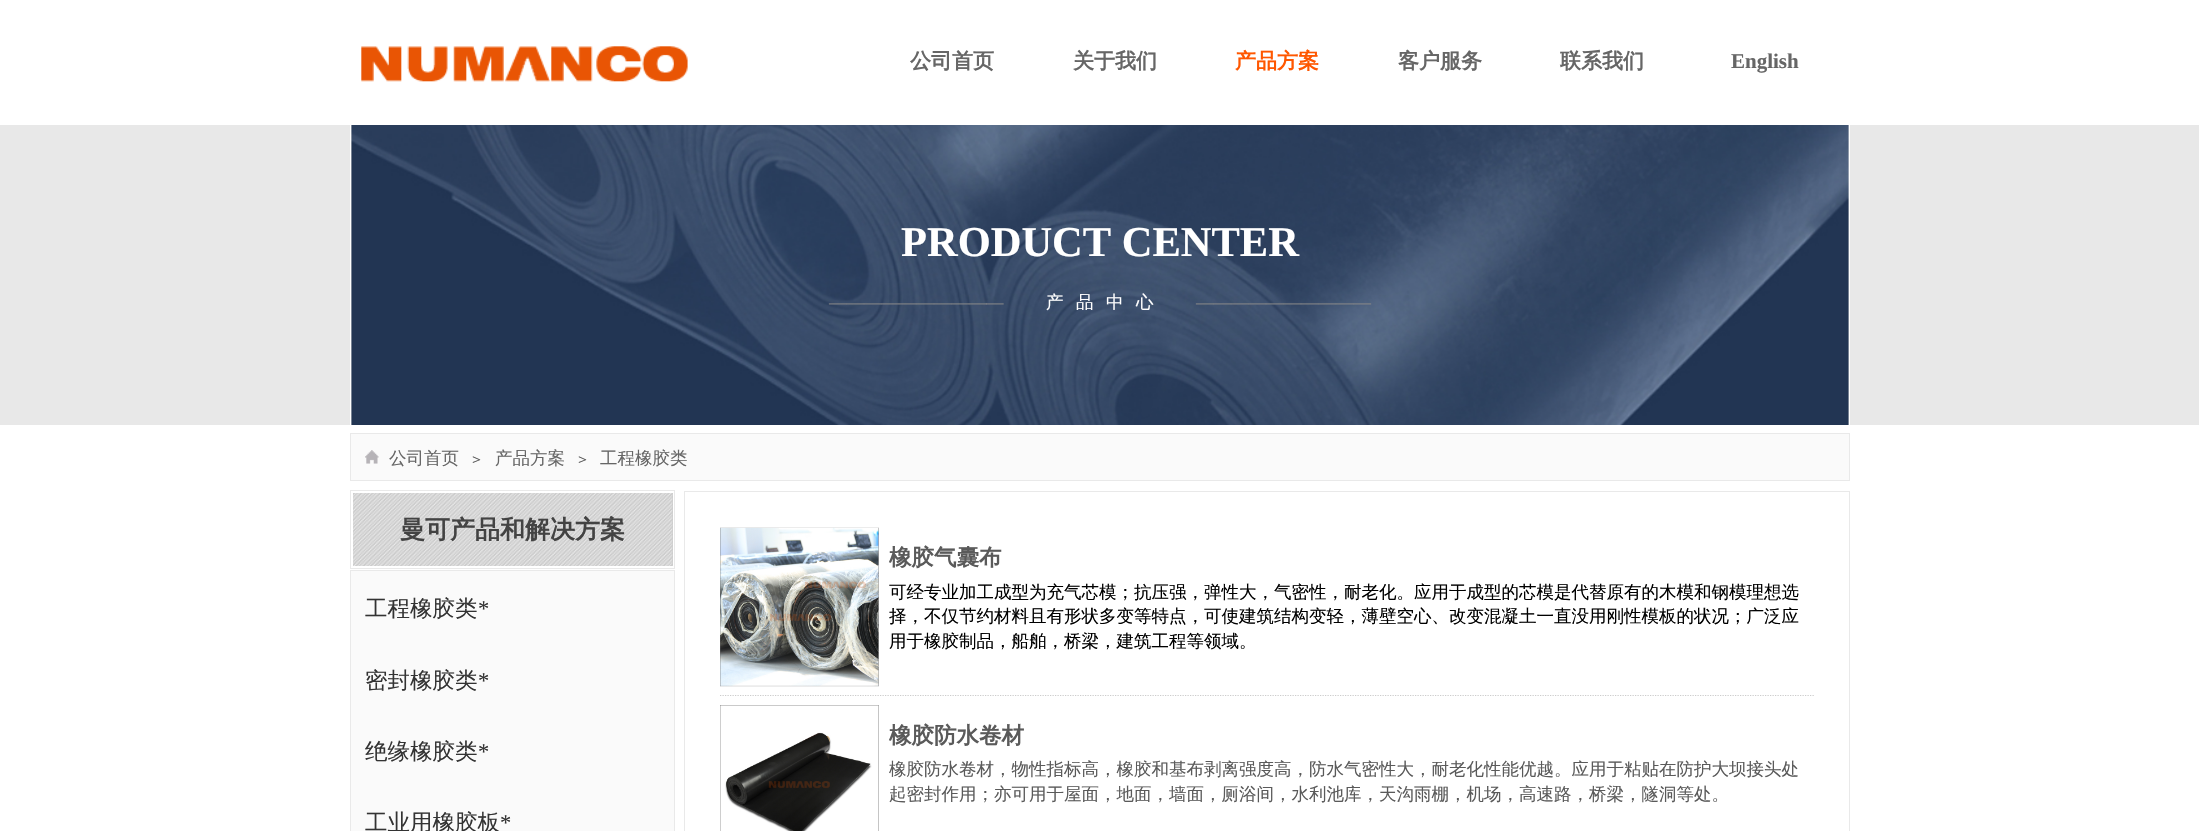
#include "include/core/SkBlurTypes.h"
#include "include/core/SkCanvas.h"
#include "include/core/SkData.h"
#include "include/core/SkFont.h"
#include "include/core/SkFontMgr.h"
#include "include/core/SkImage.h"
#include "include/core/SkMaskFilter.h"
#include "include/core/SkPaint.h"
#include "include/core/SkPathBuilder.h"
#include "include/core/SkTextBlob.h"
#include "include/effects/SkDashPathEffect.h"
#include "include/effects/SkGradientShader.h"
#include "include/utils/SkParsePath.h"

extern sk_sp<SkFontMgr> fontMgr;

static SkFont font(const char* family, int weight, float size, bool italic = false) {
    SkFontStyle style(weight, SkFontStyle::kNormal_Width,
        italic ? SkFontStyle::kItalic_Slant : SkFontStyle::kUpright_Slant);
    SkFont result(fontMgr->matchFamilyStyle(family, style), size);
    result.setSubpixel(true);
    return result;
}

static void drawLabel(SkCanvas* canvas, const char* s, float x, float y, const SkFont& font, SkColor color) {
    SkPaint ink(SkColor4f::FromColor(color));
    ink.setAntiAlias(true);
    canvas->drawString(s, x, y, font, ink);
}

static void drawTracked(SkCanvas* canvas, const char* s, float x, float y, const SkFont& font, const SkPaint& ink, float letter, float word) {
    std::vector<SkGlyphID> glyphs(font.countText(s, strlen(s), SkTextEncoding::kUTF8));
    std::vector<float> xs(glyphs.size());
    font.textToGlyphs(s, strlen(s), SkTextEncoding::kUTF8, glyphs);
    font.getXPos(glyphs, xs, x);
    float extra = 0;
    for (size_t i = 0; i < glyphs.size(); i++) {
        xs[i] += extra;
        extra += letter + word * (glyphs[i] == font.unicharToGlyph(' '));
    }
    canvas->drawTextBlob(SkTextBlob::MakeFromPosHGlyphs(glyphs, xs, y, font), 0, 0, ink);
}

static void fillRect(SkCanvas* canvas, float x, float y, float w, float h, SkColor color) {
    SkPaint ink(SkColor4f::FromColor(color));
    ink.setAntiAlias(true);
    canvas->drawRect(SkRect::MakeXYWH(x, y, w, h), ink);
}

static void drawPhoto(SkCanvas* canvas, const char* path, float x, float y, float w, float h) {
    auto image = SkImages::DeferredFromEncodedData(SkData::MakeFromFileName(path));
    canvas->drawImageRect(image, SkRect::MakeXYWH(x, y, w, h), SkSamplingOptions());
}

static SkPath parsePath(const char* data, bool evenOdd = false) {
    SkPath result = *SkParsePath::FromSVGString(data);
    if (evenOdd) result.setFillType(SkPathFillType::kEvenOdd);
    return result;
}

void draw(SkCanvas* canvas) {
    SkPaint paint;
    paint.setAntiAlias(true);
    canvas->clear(0xFFFFFFFF);
    drawPhoto(canvas, "assets/img1.png", 361, 46, 327, 36);
    SkFont font1 = font("WenQuanYi Zen Hei", 700, 21);
    drawLabel(canvas, "公司首页", 910, 68, font1, 0xFF666666);
    drawLabel(canvas, "关于我们", 1073, 68, font1, 0xFF666666);
    drawLabel(canvas, "产品方案", 1235, 68, font1, 0xFFFF5700);
    drawLabel(canvas, "客户服务", 1398, 68, font1, 0xFF666666);
    drawLabel(canvas, "联系我们", 1560, 68, font1, 0xFF666666);
    SkFont font2 = font("Liberation Serif", 700, 21);
    drawLabel(canvas, "English", 1731, 68, font2, 0xFF666666);
    fillRect(canvas, 0, 125, 2199, 300, 0xFFE8E8E8);
    fillRect(canvas, 1849, 125, 1, 300, 0xFFFFFFFF);
    fillRect(canvas, 350, 125, 1, 300, 0xFFFFFFFF);
    drawPhoto(canvas, "assets/img2.png", 351, 125, 1498, 300);
    SkFont font3 = font("Liberation Serif", 700, 42.5f);
    drawLabel(canvas, "PRODUCT CENTER", 901, 256, font3, 0xFFFFFFFF);
    SkFont font4 = font("Liberation Serif", 400, 17.5f);
    drawLabel(canvas, "—————————", 829, 308, font4, 0xFF888888);
    paint.setColor(0xFF888888);
    drawTracked(canvas, "—", 986, 308, font4, paint, 12.5f, 0);
    SkFont font5 = font("WenQuanYi Zen Hei", 500, 17.5f);
    paint.setColor(0xFFFFFFFF);
    drawTracked(canvas, "产品中心", 1046, 308, font5, paint, 12.5f, 0);
    drawLabel(canvas, "——————————", 1196, 308, font4, 0xFF888888);
    paint.setColor(0xFFFAFAFA);
    canvas->drawRect(SkRect::MakeXYWH(350.5f, 433.5f, 1499, 47), paint);
    paint.setStroke(true);
    paint.setStrokeWidth(1);
    paint.setColor(0xFFE9E9E9);
    canvas->drawRect(SkRect::MakeXYWH(350.5f, 433.5f, 1499, 47), paint);
    drawPhoto(canvas, "assets/img3.png", 365, 450, 14, 14);
    drawLabel(canvas, "公司首页", 389, 464, font5, 0xFF666666);
    SkFont font6 = font("WenQuanYi Zen Hei", 500, 15);
    drawLabel(canvas, "＞", 469, 464, font6, 0xFF5A5A5A);
    drawLabel(canvas, "产品方案", 495, 464, font5, 0xFF666666);
    drawLabel(canvas, "＞", 575, 464, font6, 0xFF5A5A5A);
    drawLabel(canvas, "工程橡胶类", 600, 464, font5, 0xFF666666);
    canvas->drawRect(SkRect::MakeXYWH(350.5f, 490.5f, 324, 78), paint);
    fillRect(canvas, 353, 493, 320, 73, 0xFFCCCCCC);
    drawPhoto(canvas, "assets/img4.png", 353, 493, 319, 73);
    drawPhoto(canvas, "assets/img5.png", 353, 493, 320, 73);
    SkFont font7 = font("WenQuanYi Zen Hei", 700, 25);
    drawLabel(canvas, "曼可产品和解决方案", 400, 538, font7, 0xFF434343);
    canvas->drawRect(SkRect::MakeXYWH(350.5f, 570.5f, 324, 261), paint);
    fillRect(canvas, 351, 571, 323, 260, 0xFFFAFAFA);
    SkFont font8 = font("WenQuanYi Zen Hei", 500, 22.5f);
    drawLabel(canvas, "工程橡胶类", 365, 616, font8, 0xFF333333);
    SkFont font9 = font("Liberation Serif", 400, 22.5f);
    drawLabel(canvas, "*", 478, 616, font9, 0xFF333333);
    drawLabel(canvas, "密封橡胶类", 365, 688, font8, 0xFF333333);
    drawLabel(canvas, "*", 478, 688, font9, 0xFF333333);
    drawLabel(canvas, "绝缘橡胶类", 365, 759, font8, 0xFF333333);
    drawLabel(canvas, "*", 478, 759, font9, 0xFF333333);
    drawLabel(canvas, "工业用橡胶板", 365, 830, font8, 0xFF333333);
    drawLabel(canvas, "*", 500, 830, font9, 0xFF333333);
    canvas->drawRect(SkRect::MakeXYWH(684.5f, 491.5f, 1165, 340), paint);
    paint.setStrokeWidth(1.2f);
    paint.setColor(0xFFCCCCCC);
    paint.setPathEffect(SkDashPathEffect::Make({{1.25f, 1.25f}}, 0));
    canvas->drawPath(parsePath("M720 695.5H1814"), paint);
    paint.setPathEffect(nullptr);
    drawPhoto(canvas, "assets/img6.png", 720, 527, 159, 160);
    SkFont font10 = font("WenQuanYi Zen Hei", 700, 22.5f);
    drawLabel(canvas, "橡胶气囊布", 889, 565, font10, 0xFF5A5A5A);
    drawLabel(canvas, "可经专业加工成型为充气芯模；抗压强，弹性大，气密性，耐老化。应用于成型的芯模是代替原有的木模和钢模理想选", 889, 598, font5, 0xFF000000);
    drawLabel(canvas, "择，不仅节约材料且有形状多变等特点，可使建筑结构变轻，薄壁空心、改变混凝土一直没用刚性模板的状况；广泛应", 889, 622, font5, 0xFF000000);
    drawLabel(canvas, "用于橡胶制品，船舶，桥梁，建筑工程等领域。", 889, 647, font5, 0xFF000000);
    drawPhoto(canvas, "assets/img7.png", 720, 705, 159, 126);
    drawLabel(canvas, "橡胶防水卷材", 889, 743, font10, 0xFF5A5A5A);
    drawLabel(canvas, "橡胶防水卷材，物性指标高，橡胶和基布剥离强度高，防水气密性大，耐老化性能优越。应用于粘贴在防护大坝接头处", 889, 775, font5, 0xFF5A5A5A);
    drawLabel(canvas, "起密封作用；亦可用于屋面，地面，墙面，厕浴间，水利池库，天沟雨棚，机场，高速路，桥梁，隧洞等处。", 889, 800, font5, 0xFF5A5A5A);
}
